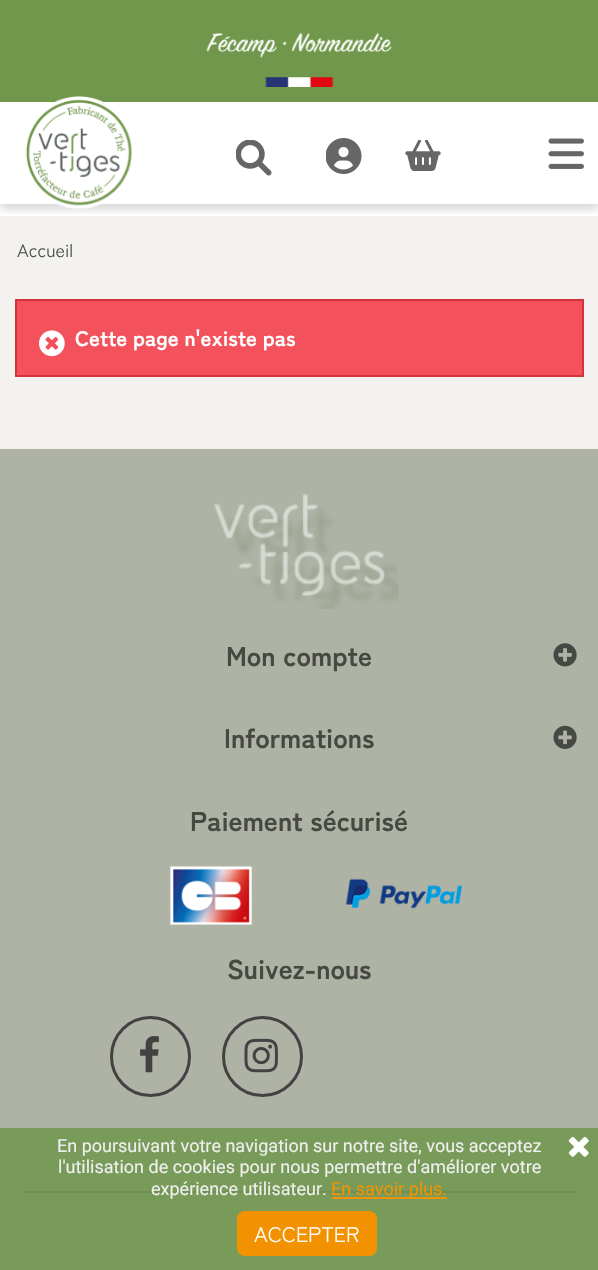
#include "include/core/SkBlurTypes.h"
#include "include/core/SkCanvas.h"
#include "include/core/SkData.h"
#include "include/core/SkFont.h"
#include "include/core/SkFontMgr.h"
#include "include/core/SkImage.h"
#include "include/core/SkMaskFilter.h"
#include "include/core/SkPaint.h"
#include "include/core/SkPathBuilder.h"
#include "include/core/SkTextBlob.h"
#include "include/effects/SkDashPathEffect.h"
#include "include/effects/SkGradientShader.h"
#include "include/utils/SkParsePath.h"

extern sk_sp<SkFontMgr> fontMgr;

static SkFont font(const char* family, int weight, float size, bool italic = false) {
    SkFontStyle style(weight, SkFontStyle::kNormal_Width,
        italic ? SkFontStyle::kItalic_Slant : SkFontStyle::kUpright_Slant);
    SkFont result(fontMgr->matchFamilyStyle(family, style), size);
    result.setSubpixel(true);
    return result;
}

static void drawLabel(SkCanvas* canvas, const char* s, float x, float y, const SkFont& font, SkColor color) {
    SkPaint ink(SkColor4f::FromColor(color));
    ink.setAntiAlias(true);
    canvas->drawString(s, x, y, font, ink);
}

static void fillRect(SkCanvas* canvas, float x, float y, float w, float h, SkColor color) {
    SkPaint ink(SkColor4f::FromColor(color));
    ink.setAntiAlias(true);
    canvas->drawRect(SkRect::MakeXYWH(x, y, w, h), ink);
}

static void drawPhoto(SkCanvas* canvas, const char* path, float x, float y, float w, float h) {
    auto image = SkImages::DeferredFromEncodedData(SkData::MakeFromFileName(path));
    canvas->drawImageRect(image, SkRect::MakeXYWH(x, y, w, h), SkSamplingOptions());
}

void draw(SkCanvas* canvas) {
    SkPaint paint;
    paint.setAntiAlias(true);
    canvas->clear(0xFFFFFFFF);
    fillRect(canvas, 0, 0, 598, 102, 0xFF70974B);
    drawPhoto(canvas, "assets/img1.png", 206, 32, 186, 55);
    fillRect(canvas, 0, 216, 598, 233, 0xFFF3F2EF);
    canvas->save();
    canvas->clipRect(SkRect::MakeXYWH(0, 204, 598, 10));
    paint.setColor(0x29000000);
    paint.setMaskFilter(SkMaskFilter::MakeBlur(kNormal_SkBlurStyle, 4.5f));
    canvas->drawRect(SkRect::MakeXYWH(0, 107, 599, 102), paint);
    paint.setMaskFilter(nullptr);
    canvas->restore();
    drawPhoto(canvas, "assets/img2.png", 26, 96, 106, 113);
    drawPhoto(canvas, "assets/img3.png", 236, 140, 36, 36);
    drawPhoto(canvas, "assets/img4.png", 326, 138, 36, 36);
    drawPhoto(canvas, "assets/img5.png", 405, 140, 36, 31);
    drawPhoto(canvas, "assets/img6.png", 548, 138, 36, 31);
    SkFont font1 = font("Zen Kaku Gothic New", 400, 18);
    drawLabel(canvas, "Accueil", 17, 257, font1, 0xFF4C4E4A);
    paint.setColor(0xFFF3515C);
    canvas->drawRect(SkRect::MakeXYWH(16, 300, 567, 76), paint);
    paint.setStroke(true);
    paint.setStrokeWidth(2);
    paint.setColor(0xFFD4323D);
    canvas->drawRect(SkRect::MakeXYWH(16, 300, 567, 76), paint);
    drawPhoto(canvas, "assets/img7.png", 39, 330, 26, 27);
    SkFont font2 = font("Zen Kaku Gothic New", 700, 21);
    drawLabel(canvas, "Cette page n'existe pas", 75, 346, font2, 0xFFFFFFFF);
    fillRect(canvas, 0, 449, 598, 679, 0xFFAEB3A6);
    fillRect(canvas, 0, 1128, 598, 142, 0xFF799B59);
    drawPhoto(canvas, "assets/img8.png", 214, 493, 185, 116);
    SkFont font3 = font("Zen Kaku Gothic New", 700, 27);
    drawLabel(canvas, "Mon compte", 226, 666, font3, 0xFF464842);
    drawPhoto(canvas, "assets/img9.png", 553, 643, 24, 24);
    drawLabel(canvas, "Informations", 224, 748, font3, 0xFF464842);
    drawPhoto(canvas, "assets/img10.png", 553, 725, 24, 24);
    drawLabel(canvas, "Paiement sécurisé", 190, 831, font3, 0xFF464842);
    drawPhoto(canvas, "assets/img11.png", 170, 866, 292, 59);
    drawLabel(canvas, "Suivez-nous", 227, 979, font3, 0xFF464842);
    drawPhoto(canvas, "assets/img12.png", 140, 1036, 19, 37);
    paint.setStrokeWidth(3);
    paint.setColor(0xFF424242);
    canvas->drawCircle(150.5f, 1056.5f, 39, paint);
    drawPhoto(canvas, "assets/img13.png", 244, 1038, 34, 35);
    canvas->drawCircle(262.5f, 1056.5f, 39, paint);
    fillRect(canvas, 23, 1191, 553, 2, 0xFF6F904F);
    SkFont font4 = font("Roboto", 400, 18);
    drawLabel(canvas, "En poursuivant votre navigation sur notre site, vous acceptez", 57, 1152, font4, 0xFFEFEFEF);
    drawLabel(canvas, "l'utilisation de cookies pour nous permettre d'améliorer votre", 58, 1173, font4, 0xFFEFEFEF);
    drawLabel(canvas, "expérience utilisateur.", 151, 1195, font4, 0xFFEFEFEF);
    fillRect(canvas, 332, 1197, 115, 2, 0xFFF39200);
    drawLabel(canvas, "En savoir plus.", 331, 1195, font4, 0xFFF39200);
    paint.setStroke(false);
    paint.setColor(0xFFF39200);
    canvas->drawRoundRect(SkRect::MakeXYWH(238, 1212, 138, 43), 7, 7, paint);
    paint.setStroke(true);
    paint.setStrokeWidth(2);
    canvas->drawRoundRect(SkRect::MakeXYWH(238, 1212, 138, 43), 7, 7, paint);
    SkFont font5 = font("Zen Kaku Gothic New", 400, 21);
    drawLabel(canvas, "ACCEPTER", 254, 1242, font5, 0xFFFFFFFF);
    drawPhoto(canvas, "assets/img14.png", 568, 1136, 21, 21);
}
